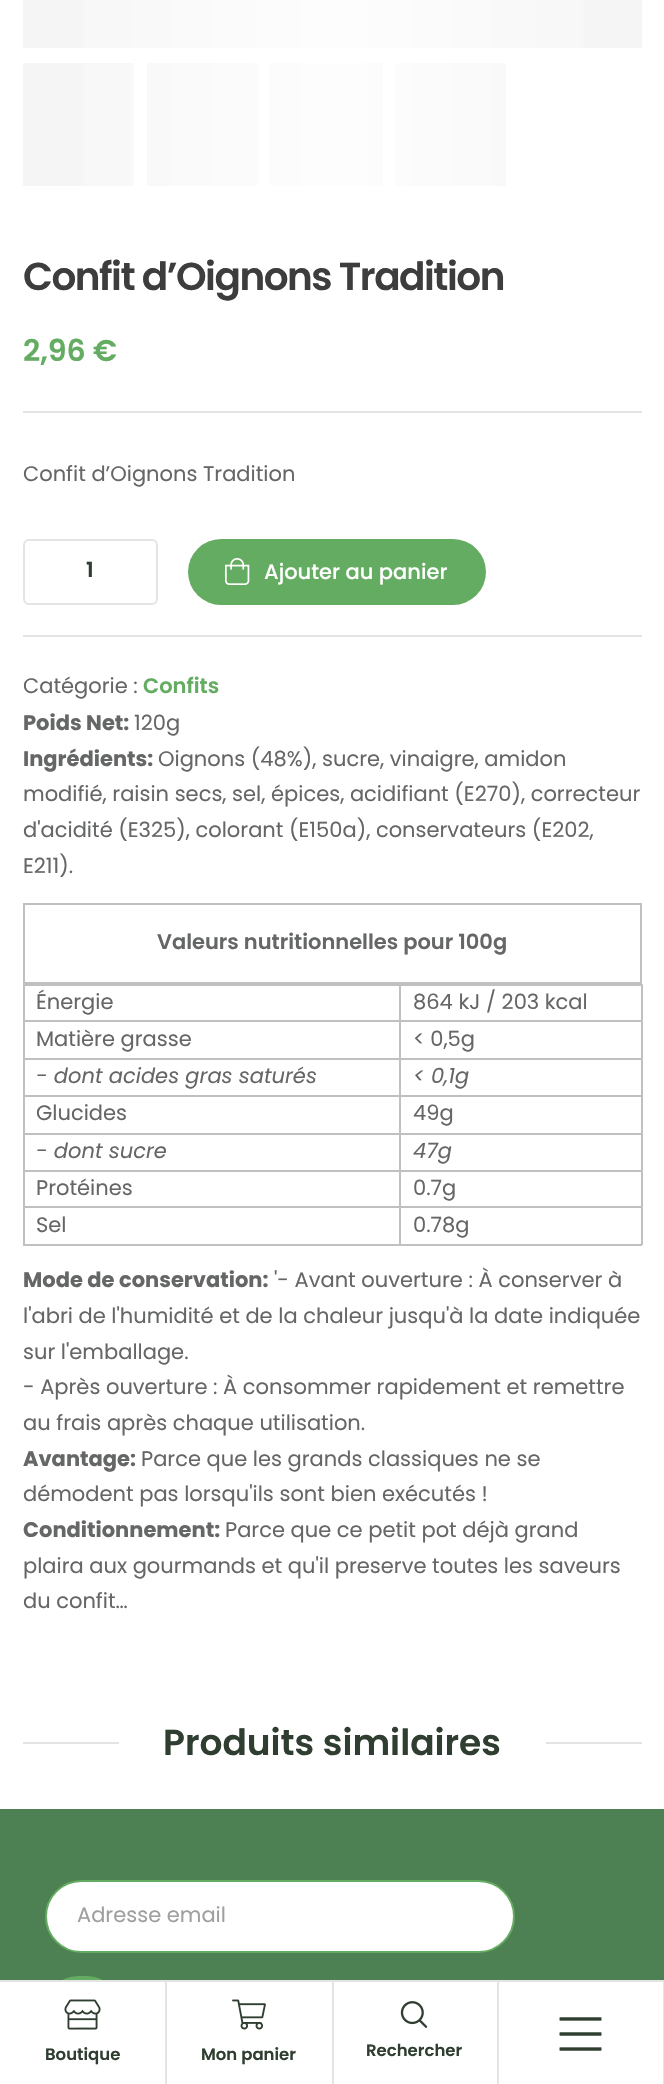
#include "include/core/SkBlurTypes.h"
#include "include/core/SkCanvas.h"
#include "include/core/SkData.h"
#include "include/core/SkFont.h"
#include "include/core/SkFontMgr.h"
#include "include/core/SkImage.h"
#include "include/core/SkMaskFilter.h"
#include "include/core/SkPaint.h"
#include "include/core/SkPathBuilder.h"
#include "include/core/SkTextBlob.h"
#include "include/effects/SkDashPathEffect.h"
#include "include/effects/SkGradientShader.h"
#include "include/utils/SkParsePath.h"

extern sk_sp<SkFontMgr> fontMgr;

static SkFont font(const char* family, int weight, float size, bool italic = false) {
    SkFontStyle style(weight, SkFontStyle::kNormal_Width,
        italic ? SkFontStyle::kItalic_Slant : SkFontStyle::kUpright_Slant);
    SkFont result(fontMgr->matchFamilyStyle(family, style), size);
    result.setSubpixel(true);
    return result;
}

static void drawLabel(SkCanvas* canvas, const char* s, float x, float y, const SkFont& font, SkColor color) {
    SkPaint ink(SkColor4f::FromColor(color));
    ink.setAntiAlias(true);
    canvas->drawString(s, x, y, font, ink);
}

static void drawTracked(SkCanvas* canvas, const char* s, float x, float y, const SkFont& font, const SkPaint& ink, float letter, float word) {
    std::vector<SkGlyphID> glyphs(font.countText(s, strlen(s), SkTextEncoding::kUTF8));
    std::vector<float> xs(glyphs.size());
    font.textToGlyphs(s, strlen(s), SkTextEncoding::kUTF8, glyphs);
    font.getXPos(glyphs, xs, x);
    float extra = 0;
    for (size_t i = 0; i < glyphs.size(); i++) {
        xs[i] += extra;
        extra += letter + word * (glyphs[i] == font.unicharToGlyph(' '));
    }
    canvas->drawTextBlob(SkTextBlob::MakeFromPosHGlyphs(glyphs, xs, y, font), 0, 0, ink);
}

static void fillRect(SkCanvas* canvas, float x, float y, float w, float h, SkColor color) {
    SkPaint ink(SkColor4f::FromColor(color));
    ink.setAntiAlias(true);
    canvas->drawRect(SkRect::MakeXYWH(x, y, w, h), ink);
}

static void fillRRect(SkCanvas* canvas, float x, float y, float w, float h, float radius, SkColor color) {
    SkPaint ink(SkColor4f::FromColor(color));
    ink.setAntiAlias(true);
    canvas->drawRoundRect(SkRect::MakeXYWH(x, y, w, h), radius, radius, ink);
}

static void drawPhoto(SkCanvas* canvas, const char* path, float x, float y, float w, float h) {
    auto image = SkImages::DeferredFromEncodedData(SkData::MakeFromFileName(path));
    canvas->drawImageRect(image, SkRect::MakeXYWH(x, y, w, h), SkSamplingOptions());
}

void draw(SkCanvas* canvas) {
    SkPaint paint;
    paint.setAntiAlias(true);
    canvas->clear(0xFFFFFFFF);
    fillRect(canvas, 270, 63, 113, 123, 0xFFF5F5F5);
    fillRect(canvas, 147, 63, 111, 123, 0xFFF5F5F5);
    fillRect(canvas, 23, 63, 111, 123, 0xFFF5F5F5);
    fillRect(canvas, 23, 0, 619, 48, 0xFFF5F5F5);
    fillRect(canvas, 395, 63, 111, 123, 0xFFF5F5F5);
    {
        const SkColor colors[] = {0x00FFFFFF, 0xCCFFFFFF, 0x00FFFFFF};
        const float stops[] = {0.2f, 0.5f, 0.8f};
        const SkPoint ends[] = {{-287, -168}, {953, -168}};
        paint.setShader(SkGradientShader::MakeLinear(ends, colors, stops, 3, SkTileMode::kClamp));
        paint.setAlpha(255);
    }
    canvas->drawRect(SkRect::MakeXYWH(82, 0, 502, 186), paint);
    SkFont font1 = font("Poppins", 600, 39);
    paint.setShader(nullptr);
    paint.setColor(0xFF3D3D3D);
    drawTracked(canvas, "Confit d’Oignons Tradition", 23, 290, font1, paint, -1.5f, 0);
    fillRect(canvas, 23, 411, 619, 2, 0xFFE4E4E4);
    SkFont font2 = font("Poppins", 600, 30);
    drawLabel(canvas, "2,96 €", 23, 361, font2, 0xFF64AC61);
    SkFont font3 = font("Poppins", 400, 21);
    drawLabel(canvas, "Confit d’Oignons Tradition", 23, 481, font3, 0xFF656766);
    paint.setStroke(true);
    paint.setStrokeWidth(2);
    paint.setColor(0xFFE4E4E4);
    canvas->drawRoundRect(SkRect::MakeXYWH(24, 540, 133, 64), 5, 5, paint);
    SkFont font4 = font("Poppins", 600, 21);
    drawLabel(canvas, "1", 86, 577, font4, 0xFF2F3E30);
    fillRRect(canvas, 188, 539, 298, 66, 33, 0xFF64AC61);
    drawPhoto(canvas, "assets/img1.png", 225, 558, 25, 27);
    SkFont font5 = font("Poppins", 500, 21);
    drawLabel(canvas, "Ajouter au panier", 264, 579, font5, 0xFFFFFFFF);
    fillRect(canvas, 23, 635, 619, 2, 0xFFE4E4E4);
    drawLabel(canvas, "Catégorie :", 23, 693, font3, 0xFF656766);
    drawLabel(canvas, "Confits", 143, 693, font4, 0xFF64AC61);
    SkFont font6 = font("Poppins", 700, 21);
    drawLabel(canvas, "Poids Net:", 23, 730, font6, 0xFF656766);
    drawLabel(canvas, "120g", 134, 730, font3, 0xFF656766);
    drawLabel(canvas, "Ingrédients:", 23, 766, font6, 0xFF656766);
    drawLabel(canvas, "Oignons (48%), sucre, vinaigre, amidon", 158, 766, font3, 0xFF656766);
    drawLabel(canvas, "modifié, raisin secs, sel, épices, acidifiant (E270), correcteur", 23, 801, font3, 0xFF656766);
    drawLabel(canvas, "d'acidité (E325), colorant (E150a), conservateurs (E202,", 23, 837, font3, 0xFF656766);
    drawLabel(canvas, "E211).", 23, 873, font3, 0xFF656766);
    paint.setColor(0xFFC0C0C0);
    canvas->drawRect(SkRect::MakeXYWH(24, 904, 617, 79), paint);
    drawLabel(canvas, "Valeurs nutritionnelles pour 100g", 157, 949, font4, 0xFF656766);
    fillRect(canvas, 399, 984, 243, 2, 0xFFC0C0C0);
    fillRect(canvas, 399, 1020, 243, 2, 0xFFC0C0C0);
    fillRect(canvas, 399, 1058, 243, 2, 0xFFC0C0C0);
    fillRect(canvas, 399, 1095, 243, 2, 0xFFC0C0C0);
    fillRect(canvas, 399, 1133, 243, 2, 0xFFC0C0C0);
    fillRect(canvas, 399, 1170, 243, 2, 0xFFC0C0C0);
    fillRect(canvas, 399, 1206, 243, 2, 0xFFC0C0C0);
    fillRect(canvas, 641, 1206, 2, 39, 0xFFC0C0C0);
    fillRect(canvas, 399, 1244, 243, 2, 0xFFC0C0C0);
    fillRect(canvas, 399, 1206, 2, 39, 0xFFC0C0C0);
    fillRect(canvas, 23, 1206, 378, 2, 0xFFC0C0C0);
    fillRect(canvas, 399, 1170, 2, 38, 0xFFC0C0C0);
    fillRect(canvas, 23, 1170, 378, 2, 0xFFC0C0C0);
    fillRect(canvas, 399, 1133, 2, 39, 0xFFC0C0C0);
    fillRect(canvas, 23, 1133, 378, 2, 0xFFC0C0C0);
    fillRect(canvas, 399, 1095, 2, 39, 0xFFC0C0C0);
    fillRect(canvas, 23, 1095, 378, 2, 0xFFC0C0C0);
    fillRect(canvas, 399, 1058, 2, 39, 0xFFC0C0C0);
    fillRect(canvas, 23, 1058, 378, 2, 0xFFC0C0C0);
    fillRect(canvas, 399, 1020, 2, 39, 0xFFC0C0C0);
    fillRect(canvas, 23, 1020, 378, 2, 0xFFC0C0C0);
    fillRect(canvas, 399, 984, 2, 38, 0xFFC0C0C0);
    fillRect(canvas, 23, 984, 378, 2, 0xFFC0C0C0);
    fillRect(canvas, 23, 1244, 378, 2, 0xFFC0C0C0);
    fillRect(canvas, 23, 1206, 2, 39, 0xFFC0C0C0);
    fillRect(canvas, 23, 1170, 2, 38, 0xFFC0C0C0);
    fillRect(canvas, 23, 1133, 2, 39, 0xFFC0C0C0);
    fillRect(canvas, 23, 1095, 2, 39, 0xFFC0C0C0);
    fillRect(canvas, 23, 1058, 2, 39, 0xFFC0C0C0);
    fillRect(canvas, 23, 1020, 2, 39, 0xFFC0C0C0);
    fillRect(canvas, 23, 984, 2, 38, 0xFFC0C0C0);
    drawLabel(canvas, "Énergie", 36, 1009, font3, 0xFF656766);
    fillRect(canvas, 641, 1170, 2, 38, 0xFFC0C0C0);
    fillRect(canvas, 641, 1133, 2, 39, 0xFFC0C0C0);
    fillRect(canvas, 641, 1095, 2, 39, 0xFFC0C0C0);
    fillRect(canvas, 641, 1058, 2, 39, 0xFFC0C0C0);
    fillRect(canvas, 641, 1020, 2, 39, 0xFFC0C0C0);
    fillRect(canvas, 641, 984, 2, 38, 0xFFC0C0C0);
    drawLabel(canvas, "864 kJ / 203 kcal", 413, 1009, font3, 0xFF656766);
    drawLabel(canvas, "Matière grasse", 36, 1046, font3, 0xFF656766);
    drawLabel(canvas, "< 0,5g", 413, 1046, font3, 0xFF656766);
    SkFont font7 = font("Poppins", 400, 21, true);
    drawLabel(canvas, "- dont acides gras saturés", 36, 1083, font7, 0xFF656766);
    drawLabel(canvas, "< 0,1g", 413, 1083, font7, 0xFF656766);
    drawLabel(canvas, "Glucides", 36, 1120, font3, 0xFF656766);
    drawLabel(canvas, "49g", 413, 1120, font3, 0xFF656766);
    drawLabel(canvas, "- dont sucre", 36, 1158, font7, 0xFF656766);
    drawLabel(canvas, "47g", 413, 1158, font7, 0xFF656766);
    drawLabel(canvas, "Protéines", 36, 1195, font3, 0xFF656766);
    drawLabel(canvas, "0.7g", 413, 1195, font3, 0xFF656766);
    drawLabel(canvas, "Sel", 36, 1232, font3, 0xFF656766);
    drawLabel(canvas, "0.78g", 413, 1232, font3, 0xFF656766);
    drawLabel(canvas, "Mode de conservation:", 23, 1287, font6, 0xFF656766);
    drawLabel(canvas, "'- Avant ouverture : À conserver à", 274, 1287, font3, 0xFF656766);
    drawLabel(canvas, "l'abri de l'humidité et de la chaleur jusqu'à la date indiquée", 23, 1323, font3, 0xFF656766);
    drawLabel(canvas, "sur l'emballage.", 23, 1359, font3, 0xFF656766);
    drawLabel(canvas, "- Après ouverture : À consommer rapidement et remettre", 23, 1394, font3, 0xFF656766);
    drawLabel(canvas, "au frais après chaque utilisation.", 23, 1430, font3, 0xFF656766);
    drawLabel(canvas, "Avantage:", 23, 1466, font6, 0xFF656766);
    drawLabel(canvas, "Parce que les grands classiques ne se", 141, 1466, font3, 0xFF656766);
    drawLabel(canvas, "démodent pas lorsqu'ils sont bien exécutés !", 23, 1501, font3, 0xFF656766);
    drawLabel(canvas, "Conditionnement:", 23, 1537, font6, 0xFF656766);
    drawLabel(canvas, "Parce que ce petit pot déjà grand", 225, 1537, font3, 0xFF656766);
    drawLabel(canvas, "plaira aux gourmands et qu'il preserve toutes les saveurs", 23, 1573, font3, 0xFF656766);
    drawLabel(canvas, "du confit…", 23, 1608, font3, 0xFF656766);
    fillRect(canvas, 23, 1742, 96, 2, 0xFFE4E4E4);
    SkFont font8 = font("Poppins", 600, 36);
    drawLabel(canvas, "Produits similaires", 163, 1755, font8, 0xFF2F3E30);
    fillRect(canvas, 546, 1742, 96, 2, 0xFFE4E4E4);
    fillRect(canvas, 0, 1809, 664, 171, 0xFF4D8052);
    paint.setStroke(false);
    paint.setColor(0xFFFFFFFF);
    canvas->drawRoundRect(SkRect::MakeXYWH(46, 1881, 468, 71), 35.5f, 35.5f, paint);
    paint.setStroke(true);
    paint.setColor(0xFF64AC61);
    canvas->drawRoundRect(SkRect::MakeXYWH(46, 1881, 468, 71), 35.5f, 35.5f, paint);
    drawLabel(canvas, "Adresse email", 77, 1922, font3, 0xFF9F9F9F);
    fillRRect(canvas, 45, 1976, 75, 66, 33, 0xFF64AC61);
    fillRect(canvas, 45, 1982, 75, 60, 0xFFFFFFFF);
    fillRect(canvas, 0, 1980, 664, 2, 0xFFE4E4E4);
    fillRect(canvas, 165, 1982, 2, 102, 0xFFE4E4E4);
    drawPhoto(canvas, "assets/img2.png", 64, 1999, 37, 31);
    SkFont font9 = font("Poppins", 600, 16.5f);
    drawLabel(canvas, "Boutique", 45, 2060, font9, 0xFF2F3E30);
    fillRect(canvas, 332, 1982, 2, 102, 0xFFE4E4E4);
    drawPhoto(canvas, "assets/img3.png", 232, 1999, 34, 31);
    drawLabel(canvas, "Mon panier", 201, 2060, font9, 0xFF2F3E30);
    fillRect(canvas, 497, 1982, 2, 102, 0xFFE4E4E4);
    drawPhoto(canvas, "assets/img4.png", 400, 2001, 28, 27);
    drawLabel(canvas, "Rechercher", 366, 2056, font9, 0xFF2F3E30);
    fillRect(canvas, 663, 1982, 1, 102, 0xFFE4E4E4);
    drawPhoto(canvas, "assets/img5.png", 559, 2017, 43, 34);
}
